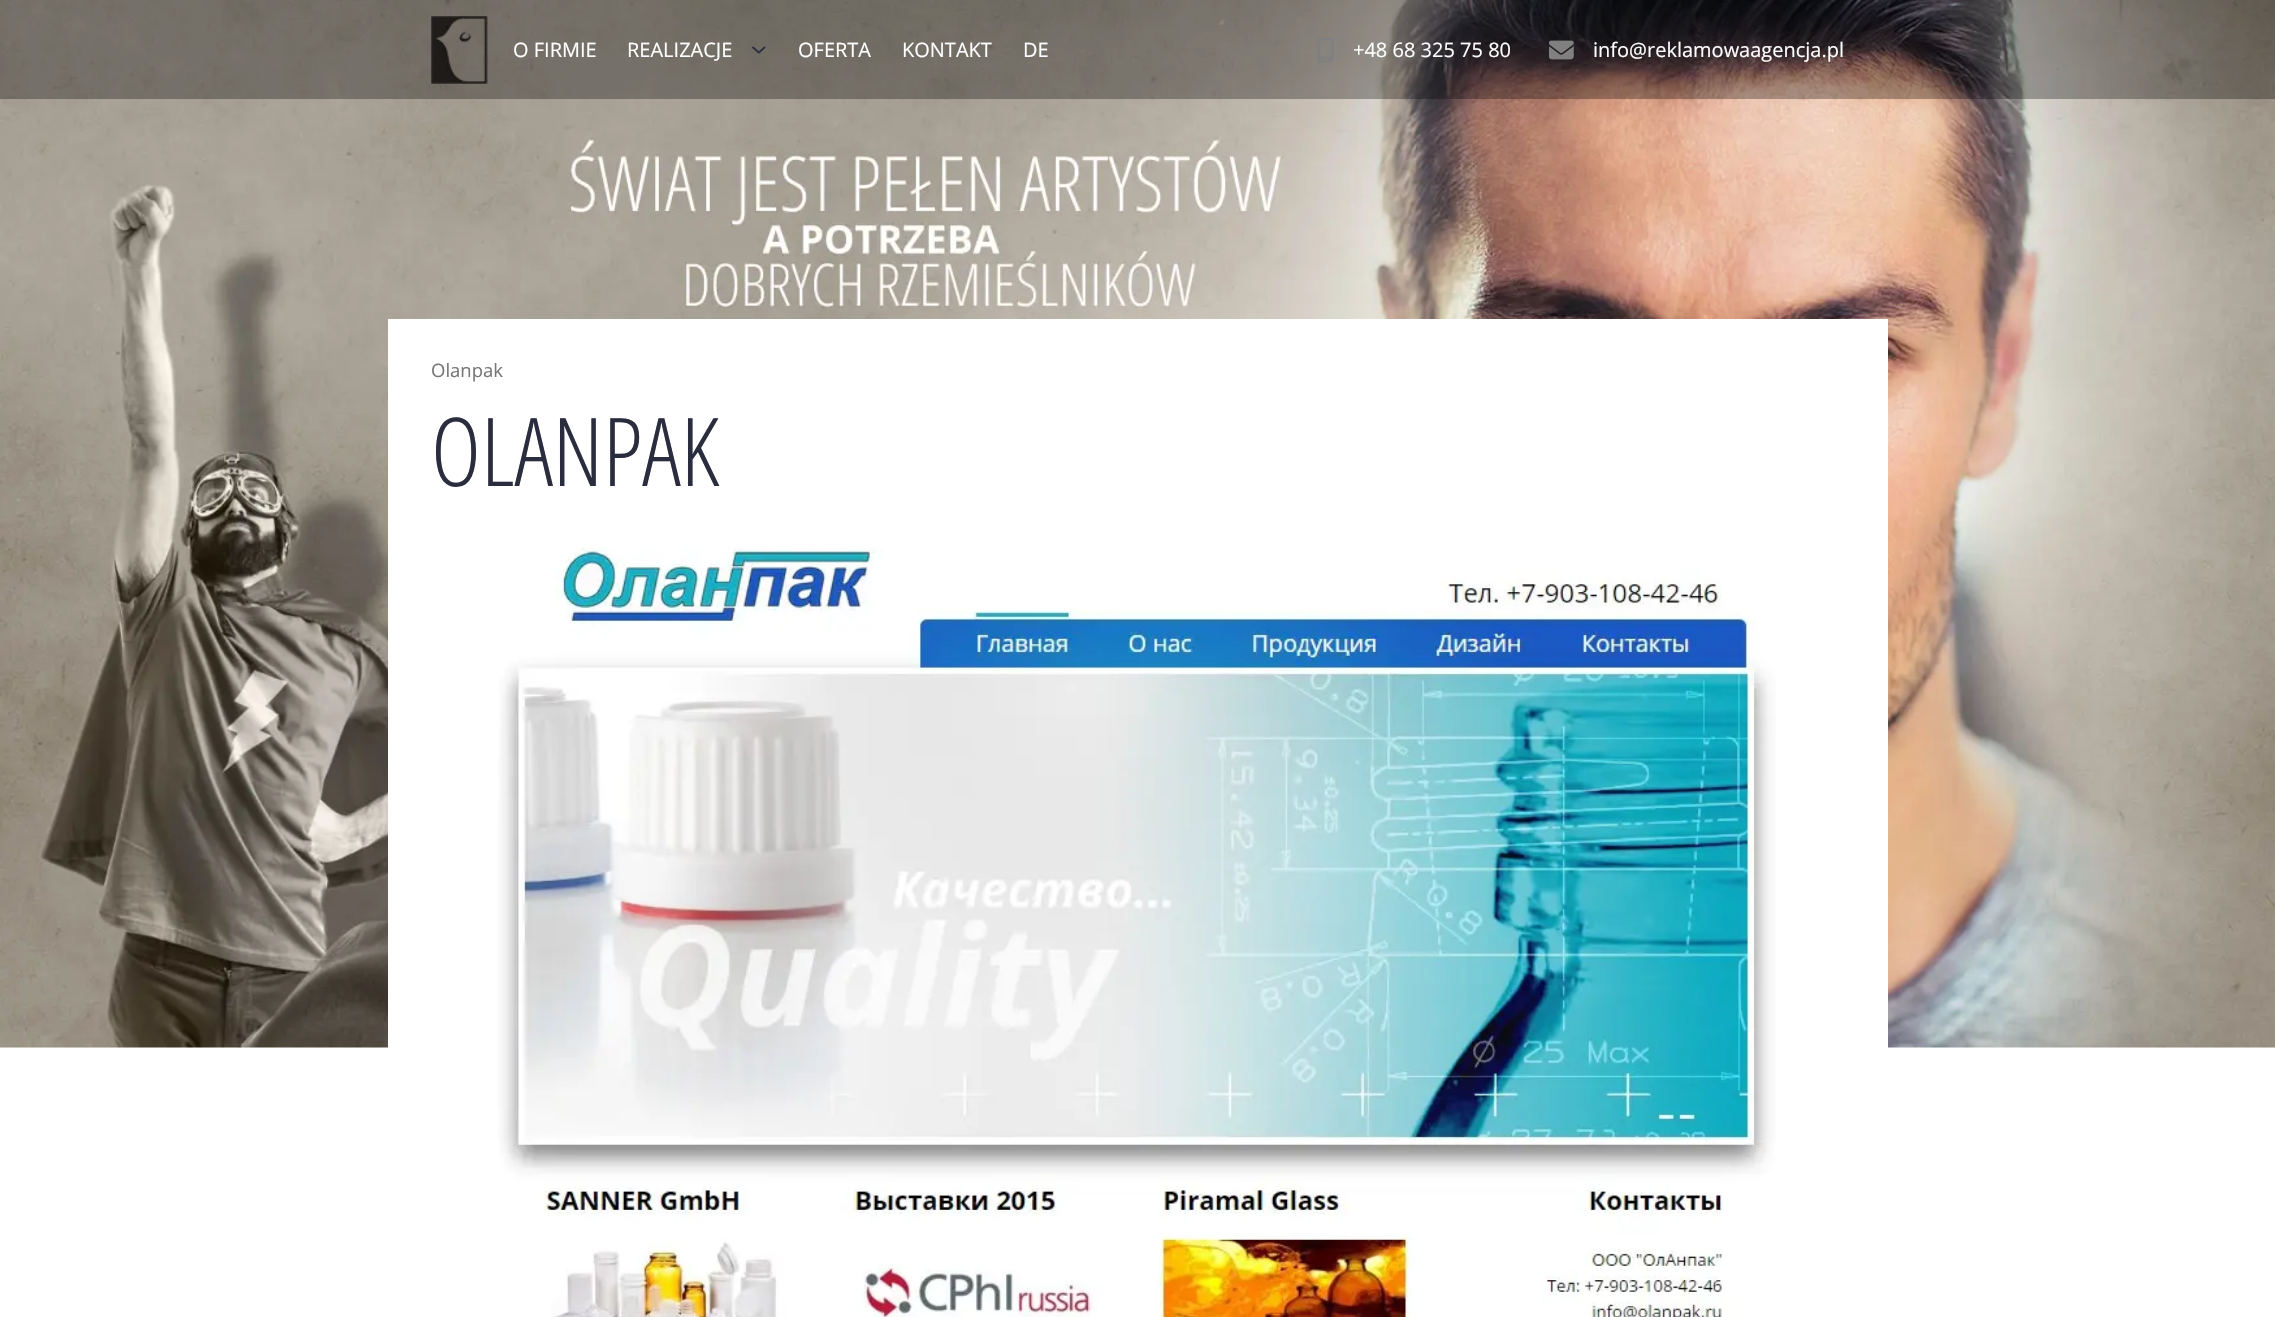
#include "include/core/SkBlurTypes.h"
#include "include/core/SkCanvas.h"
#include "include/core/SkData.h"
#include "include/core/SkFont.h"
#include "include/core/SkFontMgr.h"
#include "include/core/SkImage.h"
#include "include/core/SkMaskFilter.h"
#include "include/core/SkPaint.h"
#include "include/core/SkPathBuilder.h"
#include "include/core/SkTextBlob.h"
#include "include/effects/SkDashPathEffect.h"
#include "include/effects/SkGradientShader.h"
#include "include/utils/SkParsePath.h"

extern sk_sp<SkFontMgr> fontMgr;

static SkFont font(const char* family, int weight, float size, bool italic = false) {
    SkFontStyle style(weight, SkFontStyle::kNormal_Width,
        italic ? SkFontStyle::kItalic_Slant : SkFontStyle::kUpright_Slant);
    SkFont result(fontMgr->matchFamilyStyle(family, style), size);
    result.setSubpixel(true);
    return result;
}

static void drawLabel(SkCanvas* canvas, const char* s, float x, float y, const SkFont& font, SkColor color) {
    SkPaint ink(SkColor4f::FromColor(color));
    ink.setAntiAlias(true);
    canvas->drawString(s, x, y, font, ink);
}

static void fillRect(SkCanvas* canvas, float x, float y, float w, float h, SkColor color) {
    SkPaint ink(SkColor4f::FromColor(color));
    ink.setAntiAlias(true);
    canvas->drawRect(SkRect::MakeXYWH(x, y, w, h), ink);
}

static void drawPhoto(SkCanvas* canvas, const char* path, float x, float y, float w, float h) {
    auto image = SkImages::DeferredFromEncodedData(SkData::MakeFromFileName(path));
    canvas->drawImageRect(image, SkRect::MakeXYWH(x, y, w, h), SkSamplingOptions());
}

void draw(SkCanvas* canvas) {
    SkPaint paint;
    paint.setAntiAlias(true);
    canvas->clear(0xFFFFFFFF);
    drawPhoto(canvas, "assets/img1.png", 0, 0, 2275, 1048);
    fillRect(canvas, 0, 0, 2275, 99, 0x4D000000);
    drawPhoto(canvas, "assets/img2.png", 431, 16, 57, 68);
    SkFont font1 = font("Open Sans", 400, 20);
    drawLabel(canvas, "O FIRMIE", 513, 57, font1, 0xFFFFFFFF);
    drawLabel(canvas, "REALIZACJE", 627, 57, font1, 0xFFFFFFFF);
    drawPhoto(canvas, "assets/img3.png", 752, 46, 14, 8);
    drawLabel(canvas, "OFERTA", 798, 57, font1, 0xFFFFFFFF);
    drawLabel(canvas, "KONTAKT", 902, 57, font1, 0xFFFFFFFF);
    drawLabel(canvas, "DE", 1023, 57, font1, 0xFFFFFFFF);
    drawPhoto(canvas, "assets/img4.png", 1317, 38, 17, 25);
    drawLabel(canvas, "+48 68 325 75 80", 1353, 57, font1, 0xFFFFFFFF);
    drawPhoto(canvas, "assets/img5.png", 1549, 40, 25, 20);
    drawLabel(canvas, "info@reklamowaagencja.pl", 1593, 57, font1, 0xFFFFFFFF);
    fillRect(canvas, 388, 319, 1500, 729, 0xFFFFFFFF);
    SkFont font2 = font("Open Sans", 400, 18.5f);
    drawLabel(canvas, "Olanpak", 431, 377, font2, 0xFF767676);
    SkFont font3 = font("Open Sans Condensed", 300, 95);
    drawLabel(canvas, "OLANPAK", 431, 486, font3, 0xFF2A2D3E);
    drawPhoto(canvas, "assets/img6.png", 498, 547, 1278, 770);
}
